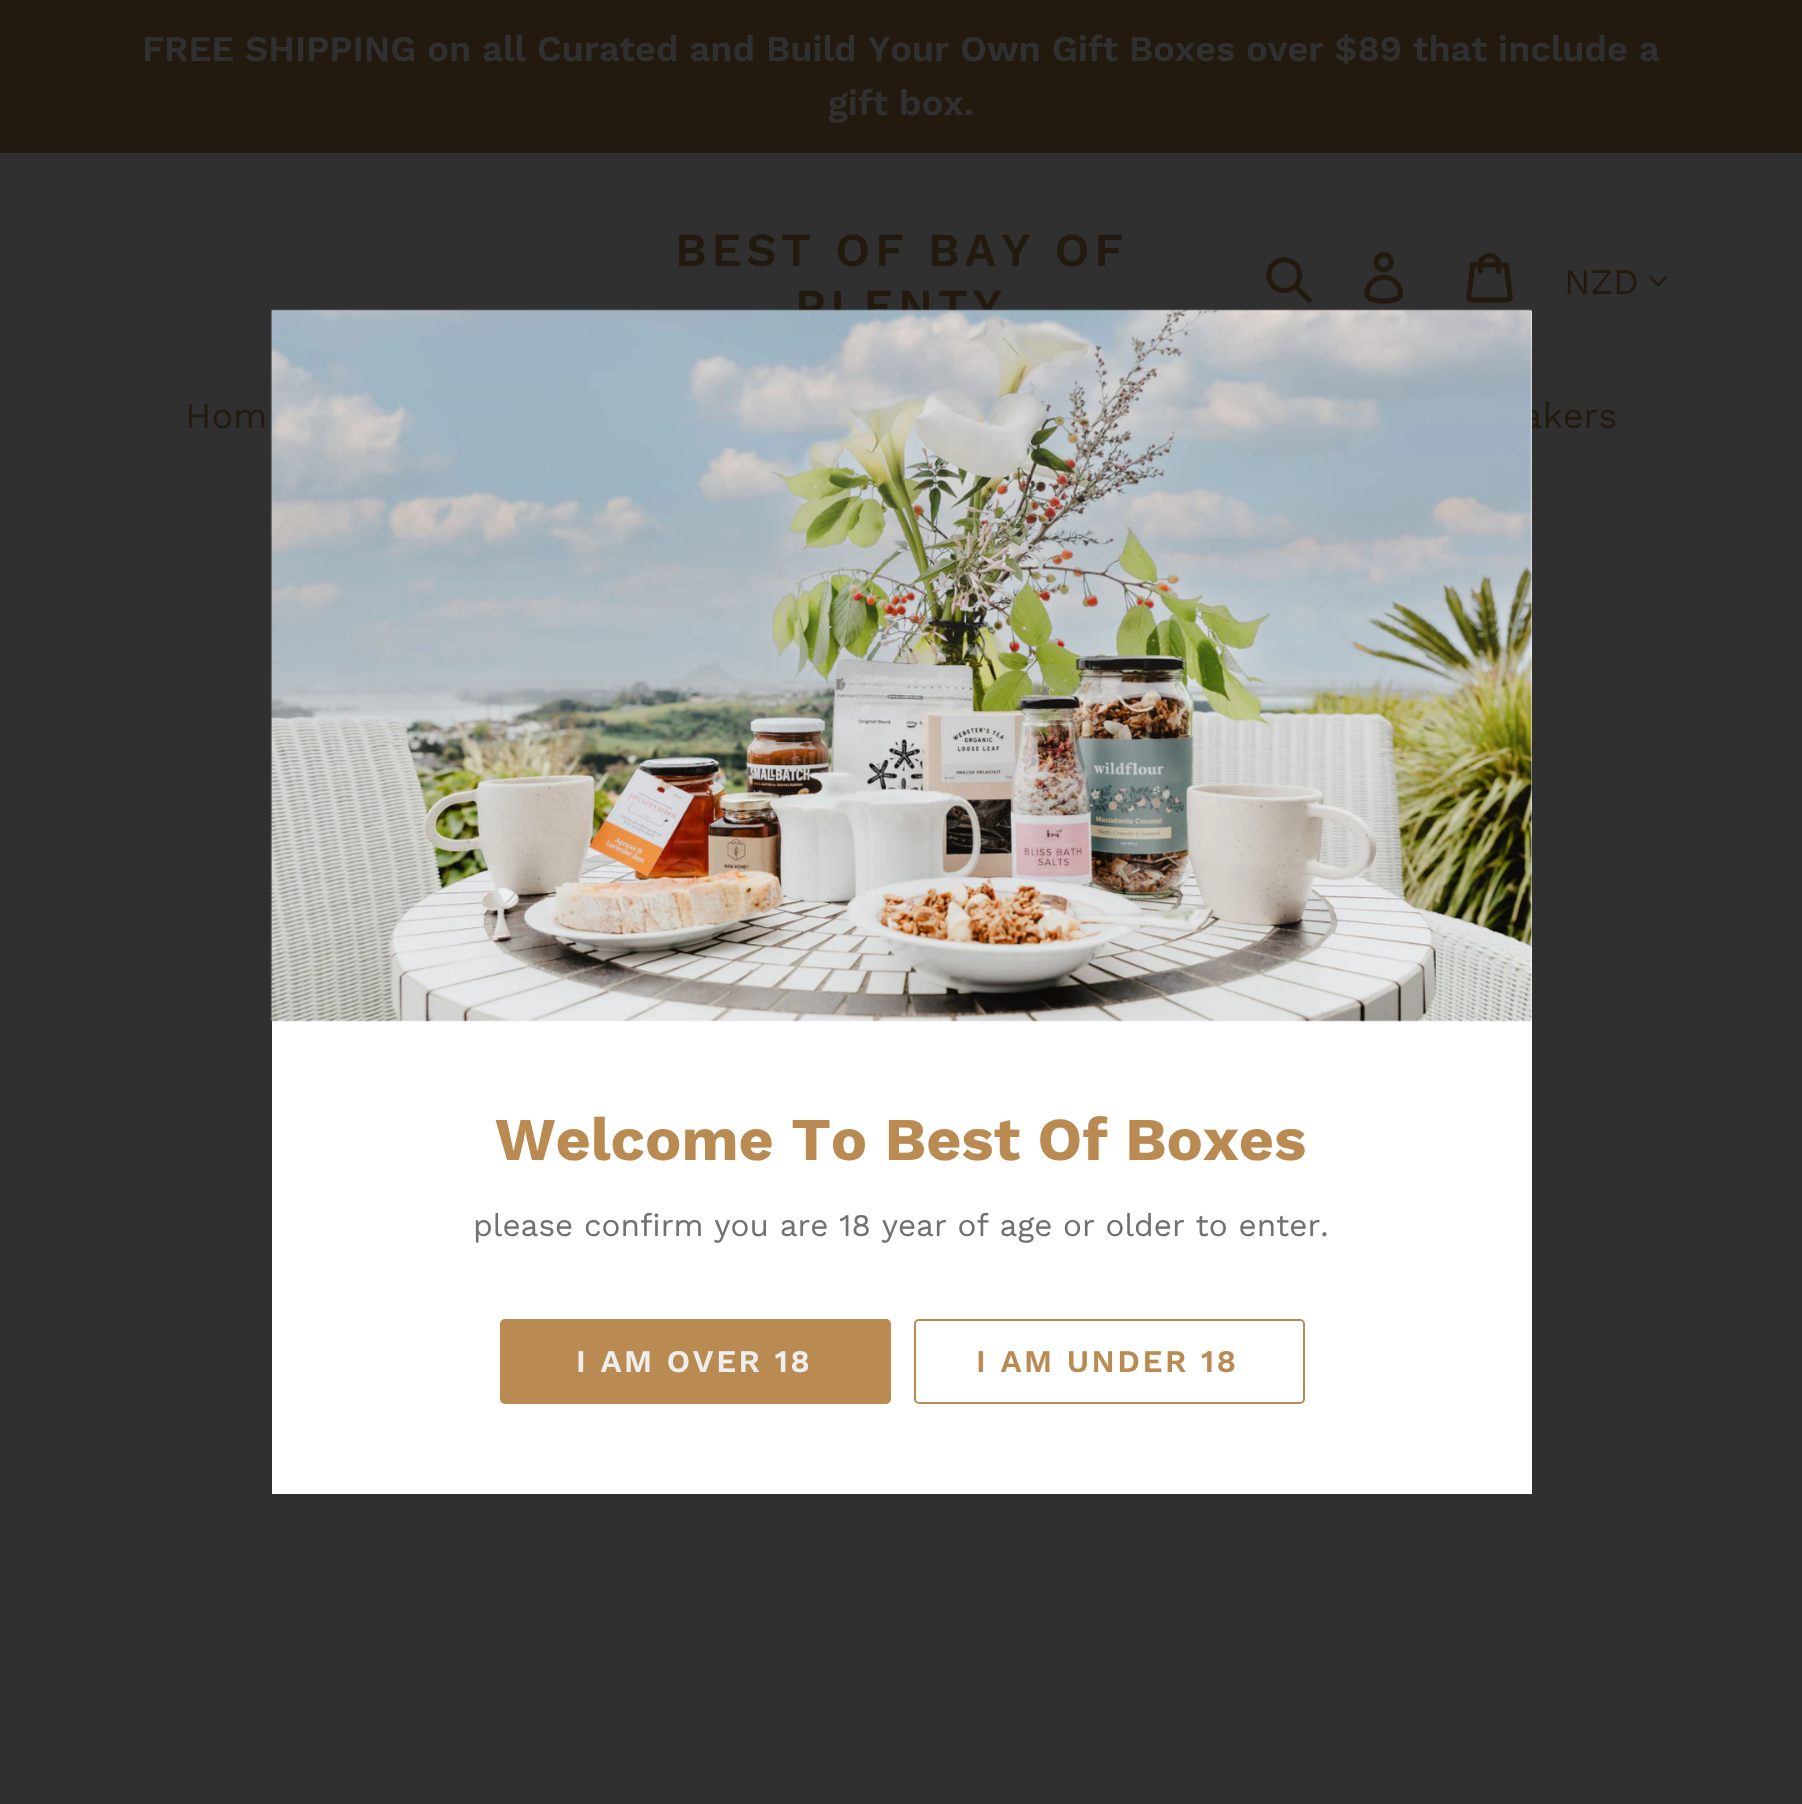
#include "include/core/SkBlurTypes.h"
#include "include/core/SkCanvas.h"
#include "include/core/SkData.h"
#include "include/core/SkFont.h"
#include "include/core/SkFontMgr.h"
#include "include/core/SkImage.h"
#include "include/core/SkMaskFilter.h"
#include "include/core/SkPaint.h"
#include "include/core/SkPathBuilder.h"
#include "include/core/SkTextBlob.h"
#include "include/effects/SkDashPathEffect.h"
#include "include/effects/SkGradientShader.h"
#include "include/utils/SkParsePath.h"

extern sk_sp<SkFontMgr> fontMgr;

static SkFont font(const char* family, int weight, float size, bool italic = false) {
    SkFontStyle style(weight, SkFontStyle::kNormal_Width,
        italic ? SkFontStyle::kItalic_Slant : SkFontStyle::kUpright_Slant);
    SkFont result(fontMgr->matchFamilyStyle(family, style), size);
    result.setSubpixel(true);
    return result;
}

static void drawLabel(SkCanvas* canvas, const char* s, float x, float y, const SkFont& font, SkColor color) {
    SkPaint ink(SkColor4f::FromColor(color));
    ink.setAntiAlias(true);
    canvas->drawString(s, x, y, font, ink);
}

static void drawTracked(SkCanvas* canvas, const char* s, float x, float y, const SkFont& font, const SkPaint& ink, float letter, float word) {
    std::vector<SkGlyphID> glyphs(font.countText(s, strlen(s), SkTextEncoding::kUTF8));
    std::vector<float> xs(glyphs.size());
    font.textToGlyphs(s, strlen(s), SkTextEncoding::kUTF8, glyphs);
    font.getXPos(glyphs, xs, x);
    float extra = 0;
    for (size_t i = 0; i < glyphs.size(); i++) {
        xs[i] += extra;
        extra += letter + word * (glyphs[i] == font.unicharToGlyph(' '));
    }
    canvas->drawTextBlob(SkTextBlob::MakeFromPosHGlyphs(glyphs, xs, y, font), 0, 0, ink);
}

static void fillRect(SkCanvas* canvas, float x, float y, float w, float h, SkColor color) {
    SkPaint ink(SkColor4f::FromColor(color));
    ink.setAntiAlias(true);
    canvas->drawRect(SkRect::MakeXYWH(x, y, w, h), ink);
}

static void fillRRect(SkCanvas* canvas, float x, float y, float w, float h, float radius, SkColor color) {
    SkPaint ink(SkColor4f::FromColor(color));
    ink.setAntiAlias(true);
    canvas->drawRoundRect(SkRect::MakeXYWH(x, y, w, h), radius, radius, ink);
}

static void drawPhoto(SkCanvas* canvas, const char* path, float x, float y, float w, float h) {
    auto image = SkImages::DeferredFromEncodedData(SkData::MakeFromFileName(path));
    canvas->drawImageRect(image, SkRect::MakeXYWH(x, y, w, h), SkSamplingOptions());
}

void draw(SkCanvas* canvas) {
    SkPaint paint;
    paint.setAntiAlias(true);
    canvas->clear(0xFF303030);
    fillRect(canvas, 0, 0, 1802, 153, 0xFF231A0F);
    SkFont font1 = font("Work Sans", 600, 36);
    drawLabel(canvas, "FREE SHIPPING on all Curated and Build Your Own Gift Boxes over $89 that include a", 142, 61, font1, 0xFF303030);
    drawLabel(canvas, "gift box.", 828, 115, font1, 0xFF303030);
    SkFont font2 = font("Work Sans", 600, 47.25f);
    paint.setColor(0xFF231A0F);
    drawTracked(canvas, "BEST OF BAY OF", 675, 266, font2, paint, 4.75f, 0);
    drawTracked(canvas, "PLENTY", 795, 322, font2, paint, 4.75f, 0);
    drawPhoto(canvas, "assets/img1.png", 1266, 257, 47, 47);
    drawPhoto(canvas, "assets/img2.png", 1364, 252, 40, 52);
    drawPhoto(canvas, "assets/img3.png", 1466, 253, 47, 50);
    SkFont font3 = font("Work Sans", 400, 36);
    drawLabel(canvas, "NZD", 1564, 294, font3, 0xFF231A0F);
    drawPhoto(canvas, "assets/img4.png", 1649, 276, 18, 11);
    drawLabel(canvas, "Hom", 185, 428, font3, 0xFF231A0F);
    drawLabel(canvas, "akers", 1522, 428, font3, 0xFF231A0F);
    fillRect(canvas, 272, 311, 1260, 1183, 0xFFFFFFFF);
    drawPhoto(canvas, "assets/img5.png", 270, 309, 1262, 713);
    SkFont font4 = font("Work Sans", 700, 60.75f);
    drawLabel(canvas, "Welcome To Best Of Boxes", 495, 1160, font4, 0xFFB98A51);
    SkFont font5 = font("Work Sans", 400, 31.5f);
    drawLabel(canvas, "please confirm you are 18 year of age or older to enter.", 473, 1236, font5, 0xFF717171);
    fillRRect(canvas, 500, 1319, 391, 85, 5, 0xFFB98A51);
    SkFont font6 = font("Work Sans", 600, 31.5f);
    paint.setColor(0xFFEEEEEE);
    drawTracked(canvas, "I AM OVER 18", 576, 1372, font6, paint, 2.5f, 0);
    paint.setStroke(true);
    paint.setStrokeWidth(2);
    paint.setColor(0xFFB98A51);
    canvas->drawRoundRect(SkRect::MakeXYWH(915, 1320, 389, 83), 4, 4, paint);
    paint.setStroke(false);
    drawTracked(canvas, "I AM UNDER 18", 976, 1372, font6, paint, 2.5f, 0);
}
